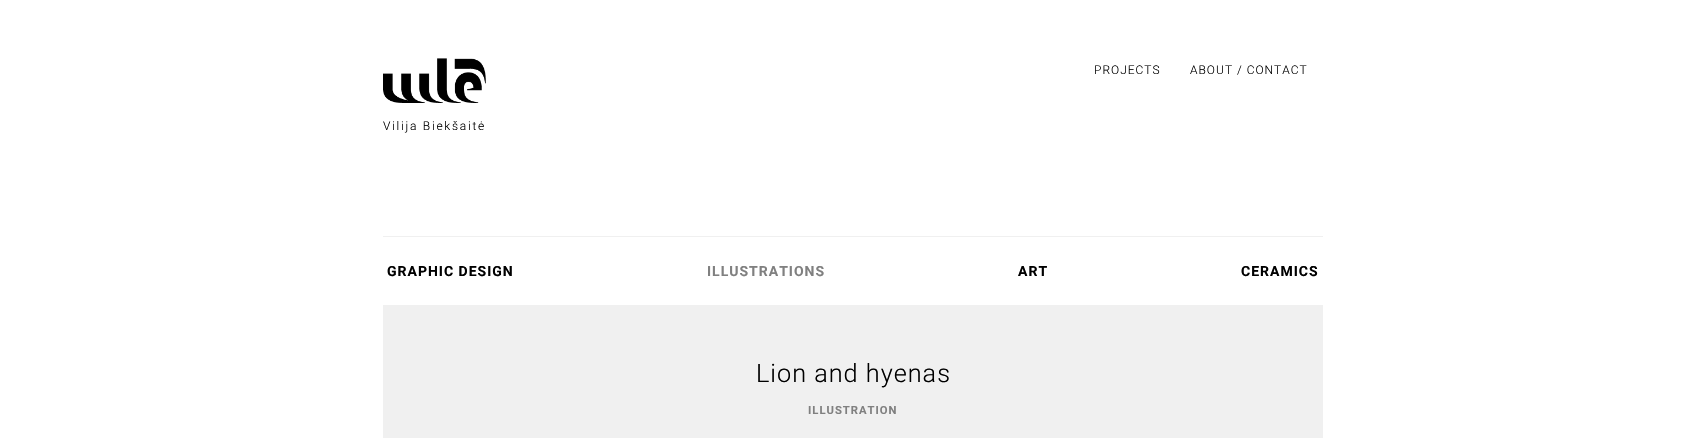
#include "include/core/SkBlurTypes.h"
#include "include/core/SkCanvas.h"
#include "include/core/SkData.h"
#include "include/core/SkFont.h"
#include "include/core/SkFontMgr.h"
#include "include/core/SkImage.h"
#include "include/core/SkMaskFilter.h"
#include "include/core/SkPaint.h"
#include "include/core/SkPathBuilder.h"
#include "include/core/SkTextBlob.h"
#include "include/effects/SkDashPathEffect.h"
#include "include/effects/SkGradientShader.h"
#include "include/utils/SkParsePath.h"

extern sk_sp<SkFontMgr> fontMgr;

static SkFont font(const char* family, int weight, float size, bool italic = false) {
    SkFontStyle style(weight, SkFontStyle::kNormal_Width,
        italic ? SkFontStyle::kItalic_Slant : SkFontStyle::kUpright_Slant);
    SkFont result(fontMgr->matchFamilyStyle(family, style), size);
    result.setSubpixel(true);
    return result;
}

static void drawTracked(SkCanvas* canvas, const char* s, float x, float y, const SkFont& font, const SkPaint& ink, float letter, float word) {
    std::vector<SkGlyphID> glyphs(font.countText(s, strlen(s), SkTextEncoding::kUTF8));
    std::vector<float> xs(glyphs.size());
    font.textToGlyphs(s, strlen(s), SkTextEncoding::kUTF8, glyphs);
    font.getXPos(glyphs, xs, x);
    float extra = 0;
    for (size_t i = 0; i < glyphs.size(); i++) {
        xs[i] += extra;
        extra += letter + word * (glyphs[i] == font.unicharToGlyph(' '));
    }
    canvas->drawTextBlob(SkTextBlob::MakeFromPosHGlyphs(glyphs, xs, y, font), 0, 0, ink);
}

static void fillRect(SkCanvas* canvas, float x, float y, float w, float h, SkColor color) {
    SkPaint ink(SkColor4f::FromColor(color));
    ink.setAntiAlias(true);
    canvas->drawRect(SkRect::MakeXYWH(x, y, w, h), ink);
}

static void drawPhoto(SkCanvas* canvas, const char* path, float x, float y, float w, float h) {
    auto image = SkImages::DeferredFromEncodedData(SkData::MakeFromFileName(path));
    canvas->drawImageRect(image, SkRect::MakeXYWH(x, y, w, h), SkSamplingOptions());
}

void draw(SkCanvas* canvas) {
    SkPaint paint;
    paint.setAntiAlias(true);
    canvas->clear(0xFFFFFFFF);
    SkFont font1 = font("Roboto", 300, 12);
    paint.setColor(0xFF000000);
    drawTracked(canvas, "PROJECTS", 1094, 74, font1, paint, 1, 0);
    drawTracked(canvas, "ABOUT / CONTACT", 1190, 74, font1, paint, 1, 0);
    drawPhoto(canvas, "assets/img1.png", 383, 58, 103, 45);
    drawTracked(canvas, "Vilija Biekšaitė", 383, 130, font1, paint, 1.75f, 0);
    fillRect(canvas, 383, 236, 940, 1, 0xFFF0F0F0);
    fillRect(canvas, 383, 305, 940, 133, 0xFFF0F0F0);
    SkFont font2 = font("Roboto", 700, 14);
    drawTracked(canvas, "GRAPHIC DESIGN", 387, 276, font2, paint, 1, 0);
    paint.setColor(0xFF808080);
    drawTracked(canvas, "ILLUSTRATIONS", 707, 276, font2, paint, 1, 0);
    paint.setColor(0xFF000000);
    drawTracked(canvas, "ART", 1018, 276, font2, paint, 1, 0);
    drawTracked(canvas, "CERAMICS", 1241, 276, font2, paint, 1, 0);
    SkFont font3 = font("Roboto", 300, 25.25f);
    drawTracked(canvas, "Lion and hyenas", 756, 382, font3, paint, 1, 0);
    SkFont font4 = font("Roboto", 700, 11.25f);
    paint.setColor(0xFF808080);
    drawTracked(canvas, "ILLUSTRATION", 808, 414, font4, paint, 1, 0);
}
